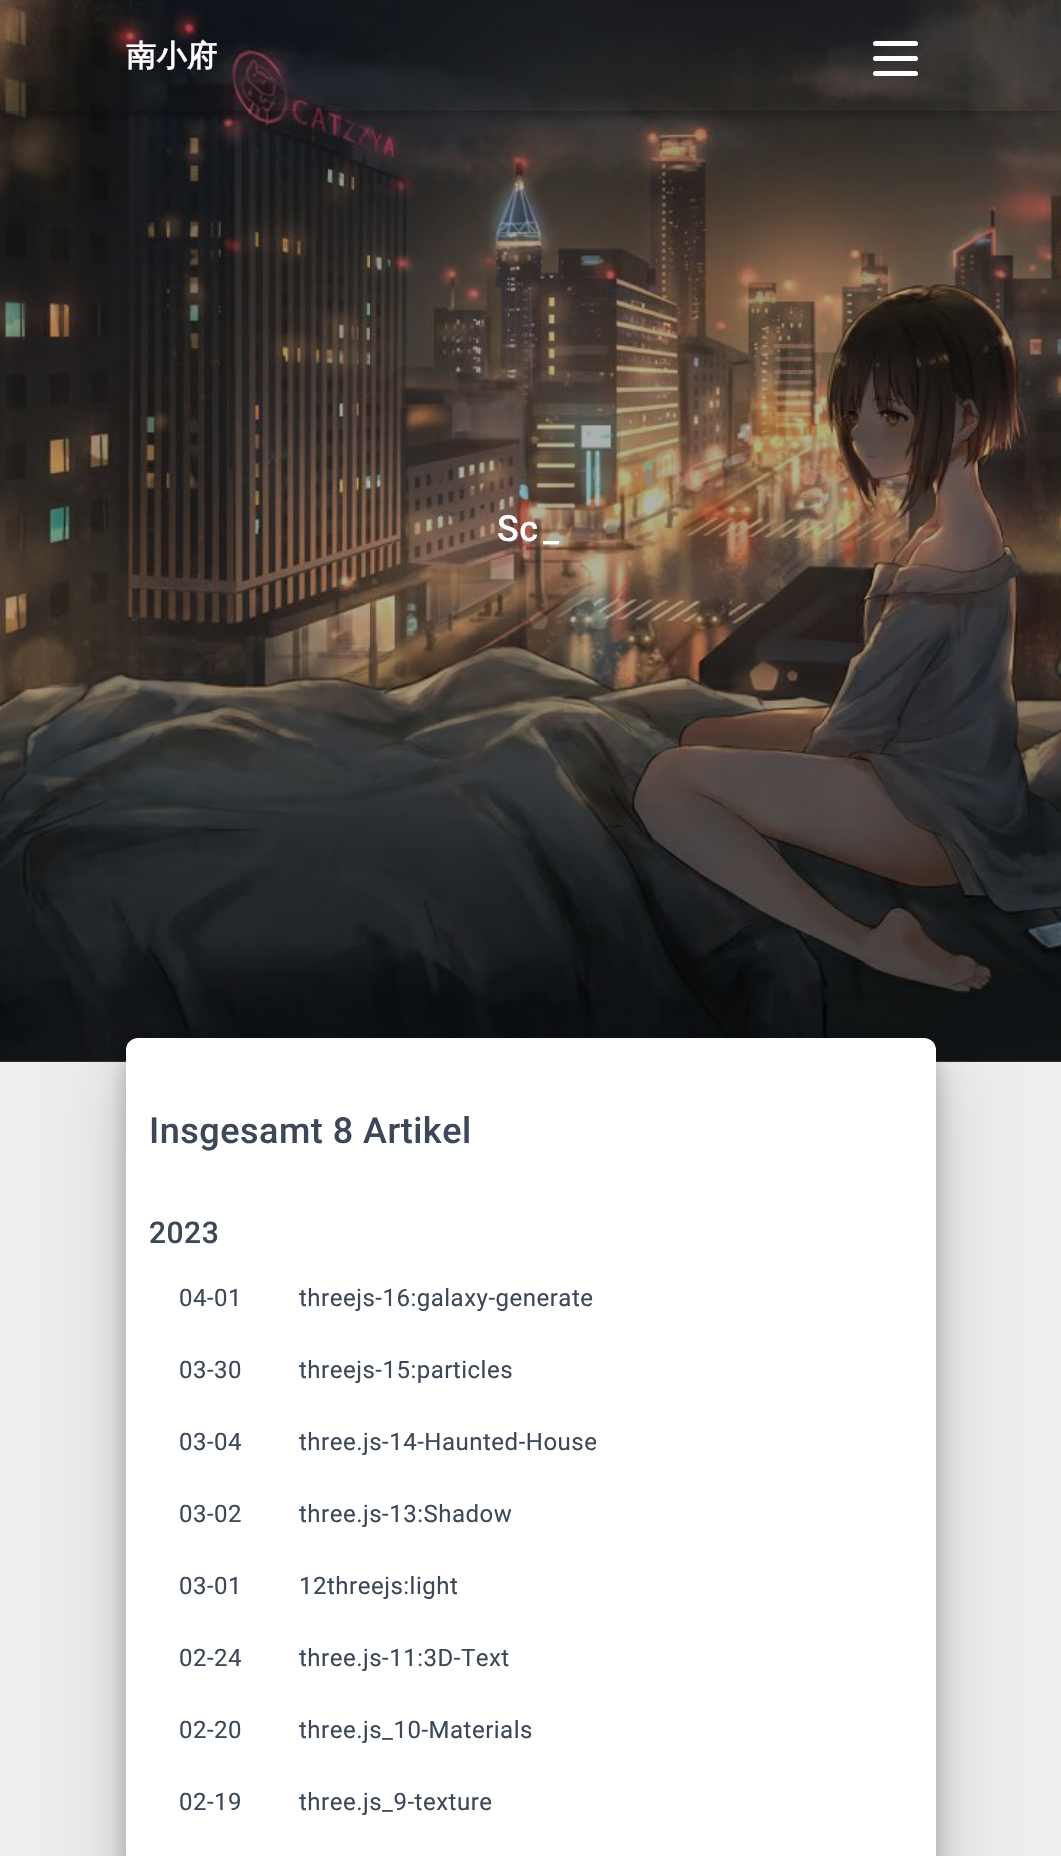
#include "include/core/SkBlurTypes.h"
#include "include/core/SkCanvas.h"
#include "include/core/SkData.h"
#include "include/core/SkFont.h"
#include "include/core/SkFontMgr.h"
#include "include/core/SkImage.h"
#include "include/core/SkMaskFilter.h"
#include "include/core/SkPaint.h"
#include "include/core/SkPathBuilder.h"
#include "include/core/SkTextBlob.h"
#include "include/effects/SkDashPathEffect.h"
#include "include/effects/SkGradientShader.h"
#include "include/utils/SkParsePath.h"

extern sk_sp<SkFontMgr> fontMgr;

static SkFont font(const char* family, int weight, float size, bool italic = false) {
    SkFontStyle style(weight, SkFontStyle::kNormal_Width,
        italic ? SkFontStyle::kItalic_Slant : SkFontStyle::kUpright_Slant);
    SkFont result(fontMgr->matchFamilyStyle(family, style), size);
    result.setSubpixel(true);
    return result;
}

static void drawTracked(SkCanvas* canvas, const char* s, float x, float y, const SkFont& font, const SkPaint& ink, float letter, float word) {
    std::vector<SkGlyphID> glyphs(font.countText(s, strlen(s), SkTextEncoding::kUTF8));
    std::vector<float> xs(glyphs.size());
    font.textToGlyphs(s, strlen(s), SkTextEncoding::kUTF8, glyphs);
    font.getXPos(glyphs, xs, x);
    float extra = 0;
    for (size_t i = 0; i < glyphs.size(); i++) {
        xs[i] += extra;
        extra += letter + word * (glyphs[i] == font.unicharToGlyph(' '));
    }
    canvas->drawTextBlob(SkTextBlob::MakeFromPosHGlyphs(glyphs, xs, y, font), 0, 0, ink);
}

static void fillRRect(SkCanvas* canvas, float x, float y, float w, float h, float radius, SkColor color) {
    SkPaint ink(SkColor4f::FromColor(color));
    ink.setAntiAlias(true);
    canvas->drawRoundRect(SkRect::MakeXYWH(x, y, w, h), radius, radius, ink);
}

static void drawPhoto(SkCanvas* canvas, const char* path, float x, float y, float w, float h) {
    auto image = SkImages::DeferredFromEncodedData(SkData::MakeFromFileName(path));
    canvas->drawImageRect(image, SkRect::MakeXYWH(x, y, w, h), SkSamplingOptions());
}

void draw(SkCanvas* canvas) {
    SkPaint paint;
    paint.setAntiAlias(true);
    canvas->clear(0xFFEEEEEE);
    drawPhoto(canvas, "assets/img1.png", 0, 0, 1061, 1062);
    canvas->save();
    canvas->clipRect(SkRect::MakeXYWH(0, 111, 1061, 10));
    paint.setColor(0x1F000000);
    paint.setMaskFilter(SkMaskFilter::MakeBlur(kNormal_SkBlurStyle, 7.5f));
    canvas->drawRect(SkRect::MakeXYWH(0, 3, 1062, 111), paint);
    paint.setMaskFilter(nullptr);
    canvas->restore();
    canvas->save();
    canvas->clipRect(SkRect::MakeXYWH(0, 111, 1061, 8));
    paint.setColor(0x29000000);
    paint.setMaskFilter(SkMaskFilter::MakeBlur(kNormal_SkBlurStyle, 4));
    canvas->drawRect(SkRect::MakeXYWH(0, 3, 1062, 111), paint);
    paint.setMaskFilter(nullptr);
    canvas->restore();
    SkFont font1 = font("WenQuanYi Zen Hei", 700, 30);
    paint.setColor(0xFFFFFFFF);
    drawTracked(canvas, "南小府", 126, 66, font1, paint, 0.5f, 0);
    fillRRect(canvas, 873, 41, 45, 5, 2.5f, 0xFFFFFFFF);
    fillRRect(canvas, 873, 56, 45, 5, 2.5f, 0xFFFFFFFF);
    fillRRect(canvas, 873, 71, 45, 5, 2.5f, 0xFFFFFFFF);
    SkFont font2 = font("Roboto", 500, 36);
    drawTracked(canvas, "Sc", 497, 541, font2, paint, 0.5f, 0);
    drawTracked(canvas, "_", 543, 541, font2, paint, 0.5f, 0);
    paint.setColor(0x30000000);
    paint.setMaskFilter(SkMaskFilter::MakeBlur(kNormal_SkBlurStyle, 37.5f));
    canvas->drawRoundRect(SkRect::MakeXYWH(126, 1064, 810, 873), 12, 12, paint);
    paint.setMaskFilter(nullptr);
    paint.setColor(0x3D000000);
    paint.setMaskFilter(SkMaskFilter::MakeBlur(kNormal_SkBlurStyle, 11));
    canvas->drawRoundRect(SkRect::MakeXYWH(126, 1056, 810, 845), 12, 12, paint);
    paint.setMaskFilter(nullptr);
    fillRRect(canvas, 126, 1038, 810, 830, 12, 0xFFFFFFFF);
    paint.setColor(0xFF3C4858);
    drawTracked(canvas, "Insgesamt 8 Artikel", 149, 1143, font2, paint, 0.5f, 0);
    SkFont font3 = font("Roboto", 500, 30);
    drawTracked(canvas, "2023", 149, 1243, font3, paint, 0.5f, 0);
    SkFont font4 = font("Roboto", 400, 24);
    drawTracked(canvas, "04-01", 179, 1306, font4, paint, 0.5f, 0);
    drawTracked(canvas, "threejs-16:galaxy-generate", 299, 1306, font4, paint, 0.5f, 0);
    drawTracked(canvas, "03-30", 179, 1378, font4, paint, 0.5f, 0);
    drawTracked(canvas, "threejs-15:particles", 299, 1378, font4, paint, 0.5f, 0);
    drawTracked(canvas, "03-04", 179, 1450, font4, paint, 0.5f, 0);
    drawTracked(canvas, "three.js-14-Haunted-House", 299, 1450, font4, paint, 0.5f, 0);
    drawTracked(canvas, "03-02", 179, 1522, font4, paint, 0.5f, 0);
    drawTracked(canvas, "three.js-13:Shadow", 299, 1522, font4, paint, 0.5f, 0);
    drawTracked(canvas, "03-01", 179, 1594, font4, paint, 0.5f, 0);
    drawTracked(canvas, "12threejs:light", 299, 1594, font4, paint, 0.5f, 0);
    drawTracked(canvas, "02-24", 179, 1666, font4, paint, 0.5f, 0);
    drawTracked(canvas, "three.js-11:3D-Text", 299, 1666, font4, paint, 0.5f, 0);
    drawTracked(canvas, "02-20", 179, 1738, font4, paint, 0.5f, 0);
    drawTracked(canvas, "three.js_10-Materials", 299, 1738, font4, paint, 0.5f, 0);
    drawTracked(canvas, "02-19", 179, 1810, font4, paint, 0.5f, 0);
    drawTracked(canvas, "three.js_9-texture", 299, 1810, font4, paint, 0.5f, 0);
}
